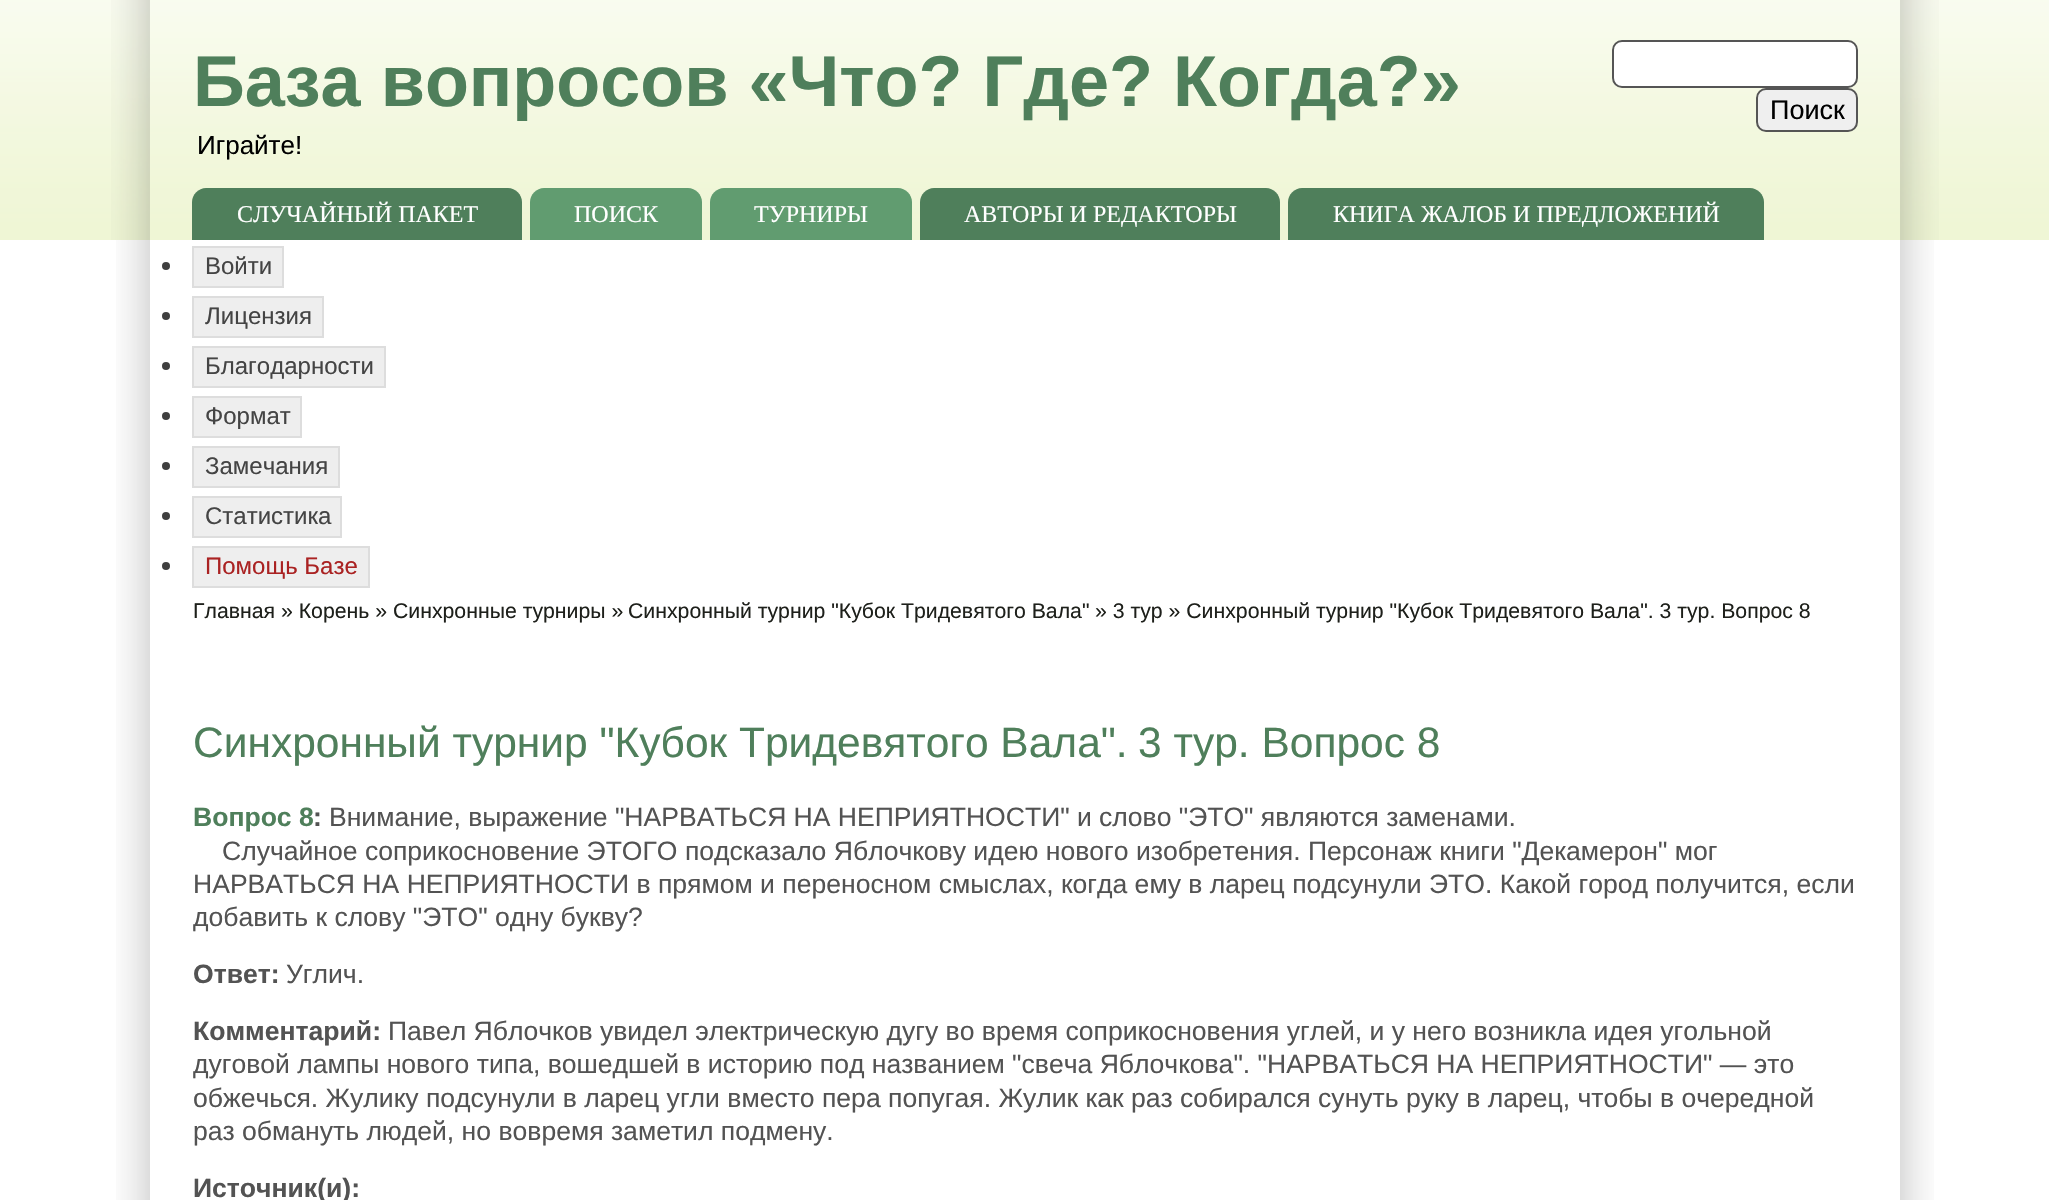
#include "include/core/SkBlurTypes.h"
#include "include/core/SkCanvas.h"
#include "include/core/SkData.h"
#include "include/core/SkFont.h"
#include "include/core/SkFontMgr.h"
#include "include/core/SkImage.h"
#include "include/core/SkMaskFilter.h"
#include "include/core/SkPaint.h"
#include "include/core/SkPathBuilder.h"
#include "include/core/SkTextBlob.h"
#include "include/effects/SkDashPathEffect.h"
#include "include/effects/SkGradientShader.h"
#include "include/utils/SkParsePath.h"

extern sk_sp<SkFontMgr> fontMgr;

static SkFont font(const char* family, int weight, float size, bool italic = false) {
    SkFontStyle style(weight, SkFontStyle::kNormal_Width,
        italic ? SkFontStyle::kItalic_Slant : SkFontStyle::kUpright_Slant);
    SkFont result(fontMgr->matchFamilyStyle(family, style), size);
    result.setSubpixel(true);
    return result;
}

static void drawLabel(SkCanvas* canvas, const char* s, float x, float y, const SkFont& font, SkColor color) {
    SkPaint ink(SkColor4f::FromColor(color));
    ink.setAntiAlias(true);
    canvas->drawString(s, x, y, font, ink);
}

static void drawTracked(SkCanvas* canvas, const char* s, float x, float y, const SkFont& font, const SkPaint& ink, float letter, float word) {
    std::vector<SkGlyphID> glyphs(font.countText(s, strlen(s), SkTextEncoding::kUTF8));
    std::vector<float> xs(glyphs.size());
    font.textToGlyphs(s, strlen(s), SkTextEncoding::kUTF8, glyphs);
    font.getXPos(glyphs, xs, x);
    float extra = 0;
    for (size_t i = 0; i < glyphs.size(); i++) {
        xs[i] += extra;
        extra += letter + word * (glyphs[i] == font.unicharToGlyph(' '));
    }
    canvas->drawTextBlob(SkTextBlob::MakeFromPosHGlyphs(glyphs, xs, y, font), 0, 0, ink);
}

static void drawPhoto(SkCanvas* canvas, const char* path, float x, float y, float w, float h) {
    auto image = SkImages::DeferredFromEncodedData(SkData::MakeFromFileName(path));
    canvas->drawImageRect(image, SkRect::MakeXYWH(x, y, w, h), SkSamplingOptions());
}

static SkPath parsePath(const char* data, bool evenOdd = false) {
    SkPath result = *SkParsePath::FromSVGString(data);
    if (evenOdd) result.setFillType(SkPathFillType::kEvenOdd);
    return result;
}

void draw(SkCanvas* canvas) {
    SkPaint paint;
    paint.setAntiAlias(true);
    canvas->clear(0xFFFFFFFF);
    drawPhoto(canvas, "assets/img1.png", 0, 0, 2049, 240);
    drawPhoto(canvas, "assets/img2.png", 111, 0, 39, 240);
    drawPhoto(canvas, "assets/img3.png", 1900, 0, 39, 240);
    SkFont font1 = font("Liberation Sans", 700, 72);
    drawLabel(canvas, "База вопросов «Что? Где? Когда?»", 193, 106, font1, 0xFF4F7F5B);
    SkFont font2 = font("Liberation Sans", 400, 26);
    drawLabel(canvas, "Играйте!", 197, 154, font2, 0xFF000000);
    paint.setColor(0xFFFFFFFF);
    canvas->drawRoundRect(SkRect::MakeXYWH(1613, 41, 244, 46), 9, 9, paint);
    paint.setStroke(true);
    paint.setStrokeWidth(2);
    paint.setColor(0xFF555555);
    canvas->drawRoundRect(SkRect::MakeXYWH(1613, 41, 244, 46), 9, 9, paint);
    paint.setStroke(false);
    paint.setColor(0xFFEFEFEF);
    canvas->drawRoundRect(SkRect::MakeXYWH(1757, 89, 100, 42), 9, 9, paint);
    paint.setStroke(true);
    paint.setColor(0xFF555555);
    canvas->drawRoundRect(SkRect::MakeXYWH(1757, 89, 100, 42), 9, 9, paint);
    SkFont font3 = font("Liberation Sans", 400, 27);
    drawLabel(canvas, "Поиск", 1770, 119, font3, 0xFF000000);
    paint.setStroke(false);
    paint.setColor(0xFF4F7F5B);
    canvas->drawPath(parsePath("M206 188H508C515.5 188 522 194.5 522 202V240H192V202C192 194.5 198.5 188 206 188Z"), paint);
    SkFont font4 = font("Liberation Serif", 400, 24);
    drawLabel(canvas, "СЛУЧАЙНЫЙ ПАКЕТ", 237, 222, font4, 0xFFFFFFFF);
    paint.setColor(0xFF619C70);
    canvas->drawPath(parsePath("M544 188H688C695.5 188 702 194.5 702 202V240H530V202C530 194.5 536.5 188 544 188Z"), paint);
    drawLabel(canvas, "ПОИСК", 574, 222, font4, 0xFFFFFFFF);
    canvas->drawPath(parsePath("M724 188H898C905.5 188 912 194.5 912 202V240H710V202C710 194.5 716.5 188 724 188Z"), paint);
    drawLabel(canvas, "ТУРНИРЫ", 754, 222, font4, 0xFFFFFFFF);
    paint.setColor(0xFF4F7F5B);
    canvas->drawPath(parsePath("M934 188H1266C1273.5 188 1280 194.5 1280 202V240H920V202C920 194.5 926.5 188 934 188Z"), paint);
    drawLabel(canvas, "АВТОРЫ И РЕДАКТОРЫ", 964, 222, font4, 0xFFFFFFFF);
    canvas->drawPath(parsePath("M1302 188H1750C1757.5 188 1764 194.5 1764 202V240H1288V202C1288 194.5 1294.5 188 1302 188Z"), paint);
    drawLabel(canvas, "КНИГА ЖАЛОБ И ПРЕДЛОЖЕНИЙ", 1333, 222, font4, 0xFFFFFFFF);
    drawPhoto(canvas, "assets/img4.png", 116, 240, 34, 960);
    drawPhoto(canvas, "assets/img5.png", 1900, 240, 34, 960);
    paint.setColor(0xFF3F3F3F);
    canvas->drawCircle(166, 266, 4, paint);
    paint.setColor(0xFFEEEEEE);
    canvas->drawRect(SkRect::MakeXYWH(193, 247, 90, 40), paint);
    paint.setStroke(true);
    paint.setColor(0xFFDDDDDD);
    canvas->drawRect(SkRect::MakeXYWH(193, 247, 90, 40), paint);
    SkFont font5 = font("Liberation Sans", 400, 24);
    drawLabel(canvas, "Войти", 205, 274, font5, 0xFF444444);
    paint.setStroke(false);
    paint.setColor(0xFF3F3F3F);
    canvas->drawCircle(166, 316, 4, paint);
    paint.setColor(0xFFEEEEEE);
    canvas->drawRect(SkRect::MakeXYWH(193, 297, 130, 40), paint);
    paint.setStroke(true);
    paint.setColor(0xFFDDDDDD);
    canvas->drawRect(SkRect::MakeXYWH(193, 297, 130, 40), paint);
    drawLabel(canvas, "Лицензия", 205, 324, font5, 0xFF444444);
    paint.setStroke(false);
    paint.setColor(0xFF3F3F3F);
    canvas->drawCircle(166, 366, 4, paint);
    paint.setColor(0xFFEEEEEE);
    canvas->drawRect(SkRect::MakeXYWH(193, 347, 192, 40), paint);
    paint.setStroke(true);
    paint.setColor(0xFFDDDDDD);
    canvas->drawRect(SkRect::MakeXYWH(193, 347, 192, 40), paint);
    drawLabel(canvas, "Благодарности", 205, 374, font5, 0xFF444444);
    paint.setStroke(false);
    paint.setColor(0xFF3F3F3F);
    canvas->drawCircle(166, 416, 4, paint);
    paint.setColor(0xFFEEEEEE);
    canvas->drawRect(SkRect::MakeXYWH(193, 397, 108, 40), paint);
    paint.setStroke(true);
    paint.setColor(0xFFDDDDDD);
    canvas->drawRect(SkRect::MakeXYWH(193, 397, 108, 40), paint);
    drawLabel(canvas, "Формат", 205, 424, font5, 0xFF444444);
    paint.setStroke(false);
    paint.setColor(0xFF3F3F3F);
    canvas->drawCircle(166, 466, 4, paint);
    paint.setColor(0xFFEEEEEE);
    canvas->drawRect(SkRect::MakeXYWH(193, 447, 146, 40), paint);
    paint.setStroke(true);
    paint.setColor(0xFFDDDDDD);
    canvas->drawRect(SkRect::MakeXYWH(193, 447, 146, 40), paint);
    drawLabel(canvas, "Замечания", 205, 474, font5, 0xFF444444);
    paint.setStroke(false);
    paint.setColor(0xFF3F3F3F);
    canvas->drawCircle(166, 516, 4, paint);
    paint.setColor(0xFFEEEEEE);
    canvas->drawRect(SkRect::MakeXYWH(193, 497, 148, 40), paint);
    paint.setStroke(true);
    paint.setColor(0xFFDDDDDD);
    canvas->drawRect(SkRect::MakeXYWH(193, 497, 148, 40), paint);
    drawLabel(canvas, "Статистика", 205, 524, font5, 0xFF444444);
    paint.setStroke(false);
    paint.setColor(0xFF3F3F3F);
    canvas->drawCircle(166, 566, 4, paint);
    paint.setColor(0xFFEEEEEE);
    canvas->drawRect(SkRect::MakeXYWH(193, 547, 176, 40), paint);
    paint.setStroke(true);
    paint.setColor(0xFFDDDDDD);
    canvas->drawRect(SkRect::MakeXYWH(193, 547, 176, 40), paint);
    drawLabel(canvas, "Помощь Базе", 205, 574, font5, 0xFFAA2222);
    SkFont font6 = font("Liberation Sans", 400, 21.25f);
    drawLabel(canvas, "Главная » Корень » Синхронные турниры »", 193, 618, font6, 0xFF1E201B);
    drawLabel(canvas, "Синхронный турнир \"Кубок Тридевятого Вала\"", 628, 618, font6, 0xFF1E201B);
    drawLabel(canvas, "» 3 тур » Синхронный турнир \"Кубок Тридевятого Вала\". 3 тур. Вопрос 8", 1095, 618, font6, 0xFF1E201B);
    SkFont font7 = font("Liberation Sans", 400, 42.5f);
    drawLabel(canvas, "Синхронный турнир \"Кубок Тридевятого Вала\".", 193, 757, font7, 0xFF4F7F5B);
    drawLabel(canvas, "3 тур. Вопрос 8", 1138, 757, font7, 0xFF4F7F5B);
    SkFont font8 = font("Liberation Sans", 700, 26.55f);
    drawLabel(canvas, "Вопрос 8", 193, 826, font8, 0xFF4F7F5B);
    drawLabel(canvas, ":", 313, 826, font8, 0xFF535353);
    SkFont font9 = font("Liberation Sans", 400, 26.55f);
    paint.setStroke(false);
    paint.setColor(0xFF535353);
    drawTracked(canvas, "Внимание, выражение \"НАРВАТЬСЯ НА НЕПРИЯТНОСТИ\" и слово \"ЭТО\" являются заменами.", 329, 826, font9, paint, 0, -0.1f);
    drawLabel(canvas, "Случайное соприкосновение ЭТОГО подсказало Яблочкову идею нового изобретения. Персонаж книги \"Декамерон\" мог", 222, 860, font9, 0xFF535353);
    drawLabel(canvas, "НАРВАТЬСЯ НА НЕПРИЯТНОСТИ в прямом и переносном смыслах, когда ему в ларец подсунули ЭТО. Какой город получится, если", 193, 893, font9, 0xFF535353);
    drawLabel(canvas, "добавить к слову \"ЭТО\" одну букву?", 193, 926, font9, 0xFF535353);
    drawLabel(canvas, "Ответ:", 193, 983, font8, 0xFF535353);
    drawLabel(canvas, "Углич.", 286, 983, font9, 0xFF535353);
    drawLabel(canvas, "Комментарий:", 193, 1040, font8, 0xFF535353);
    drawLabel(canvas, "Павел Яблочков увидел электрическую дугу во время соприкосновения углей, и у него возникла идея угольной", 388, 1040, font9, 0xFF535353);
    drawLabel(canvas, "дуговой лампы нового типа, вошедшей в историю под названием \"свеча Яблочкова\". \"НАРВАТЬСЯ НА НЕПРИЯТНОСТИ\" — это", 193, 1073, font9, 0xFF535353);
    drawLabel(canvas, "обжечься. Жулику подсунули в ларец угли вместо пера попугая. Жулик как раз собирался сунуть руку в ларец, чтобы в очередной", 193, 1107, font9, 0xFF535353);
    drawLabel(canvas, "раз обмануть людей, но вовремя заметил подмену.", 193, 1140, font9, 0xFF535353);
    drawLabel(canvas, "Источник(и):", 193, 1197, font8, 0xFF535353);
}
